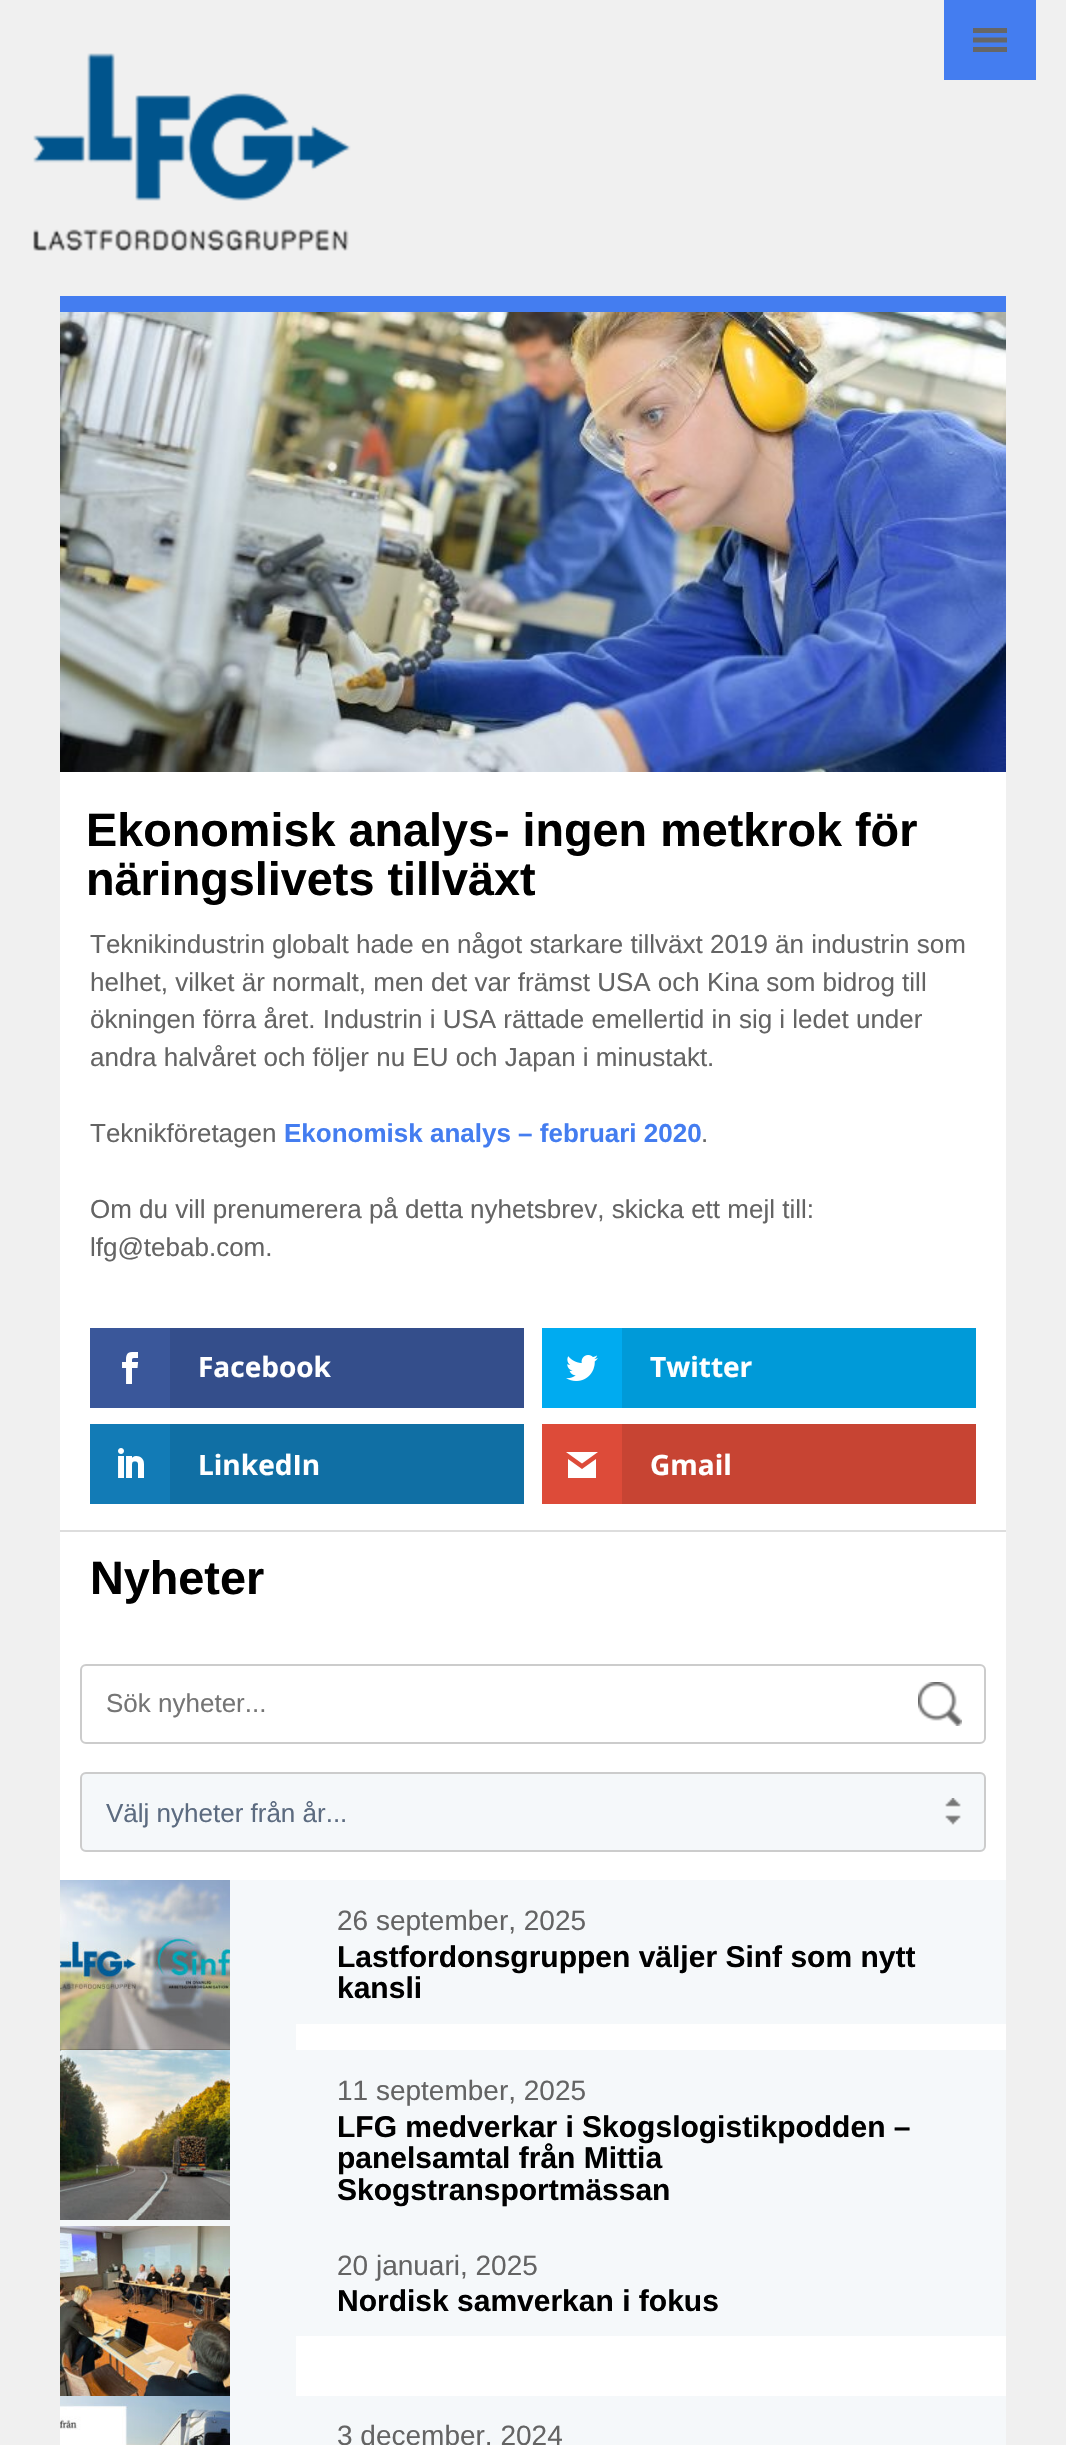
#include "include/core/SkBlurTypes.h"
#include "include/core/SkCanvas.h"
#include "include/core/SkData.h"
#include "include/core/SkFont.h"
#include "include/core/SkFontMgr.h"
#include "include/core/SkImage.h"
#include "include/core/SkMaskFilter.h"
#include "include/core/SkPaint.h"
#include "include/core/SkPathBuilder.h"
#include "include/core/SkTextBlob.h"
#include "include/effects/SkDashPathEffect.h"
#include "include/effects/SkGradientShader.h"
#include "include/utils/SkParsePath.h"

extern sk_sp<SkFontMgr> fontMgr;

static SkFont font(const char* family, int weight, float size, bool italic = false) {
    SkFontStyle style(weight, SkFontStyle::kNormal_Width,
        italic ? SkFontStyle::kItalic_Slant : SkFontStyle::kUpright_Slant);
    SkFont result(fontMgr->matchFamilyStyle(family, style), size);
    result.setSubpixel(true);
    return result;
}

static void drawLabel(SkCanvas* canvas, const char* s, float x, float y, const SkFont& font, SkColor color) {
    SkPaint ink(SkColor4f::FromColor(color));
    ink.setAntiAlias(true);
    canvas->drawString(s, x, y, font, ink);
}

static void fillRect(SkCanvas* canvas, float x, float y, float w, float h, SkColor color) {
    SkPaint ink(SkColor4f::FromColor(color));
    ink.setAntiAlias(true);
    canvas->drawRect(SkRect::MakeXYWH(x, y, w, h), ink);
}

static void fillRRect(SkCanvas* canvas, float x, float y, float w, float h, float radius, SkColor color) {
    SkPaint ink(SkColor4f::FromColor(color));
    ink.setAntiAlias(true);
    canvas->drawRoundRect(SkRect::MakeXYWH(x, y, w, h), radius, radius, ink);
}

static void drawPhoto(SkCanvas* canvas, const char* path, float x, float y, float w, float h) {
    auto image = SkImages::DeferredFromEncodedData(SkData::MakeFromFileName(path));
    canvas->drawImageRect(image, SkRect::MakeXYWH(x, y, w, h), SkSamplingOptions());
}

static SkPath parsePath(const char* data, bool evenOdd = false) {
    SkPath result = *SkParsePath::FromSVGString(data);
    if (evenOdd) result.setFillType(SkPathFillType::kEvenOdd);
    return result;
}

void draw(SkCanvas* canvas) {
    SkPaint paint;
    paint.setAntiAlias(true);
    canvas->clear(0xFFF0F0F0);
    fillRect(canvas, 944, 0, 92, 80, 0xFF447DF0);
    paint.setColor(0xFF666666);
    canvas->drawPath(parsePath("M973 52H1007V47H973ZM973 28V33H1007V28ZM973 42.5H1007V37.5H973Z"), paint);
    drawPhoto(canvas, "assets/img1.png", 33, 53, 318, 198);
    fillRect(canvas, 60, 772, 946, 1624, 0xFFFFFFFF);
    fillRect(canvas, 60, 296, 946, 16, 0xFF447DF0);
    drawPhoto(canvas, "assets/img2.png", 60, 312, 946, 460);
    SkFont font1 = font("Liberation Sans", 700, 46.75f);
    drawLabel(canvas, "Ekonomisk analys- ingen metkrok för", 86, 846, font1, 0xFF000000);
    drawLabel(canvas, "näringslivets tillväxt", 86, 895, font1, 0xFF000000);
    SkFont font2 = font("Liberation Sans", 400, 26);
    drawLabel(canvas, "Teknikindustrin globalt hade en något starkare tillväxt 2019 än industrin som", 90, 953, font2, 0xFF646464);
    drawLabel(canvas, "helhet, vilket är normalt, men det var främst USA och Kina som bidrog till", 90, 991, font2, 0xFF646464);
    drawLabel(canvas, "ökningen förra året. Industrin i USA rättade emellertid in sig i ledet under", 90, 1028, font2, 0xFF646464);
    drawLabel(canvas, "andra halvåret och följer nu EU och Japan i minustakt.", 90, 1066, font2, 0xFF646464);
    drawLabel(canvas, "Teknikföretagen", 90, 1142, font2, 0xFF646464);
    SkFont font3 = font("Liberation Sans", 700, 26);
    drawLabel(canvas, "Ekonomisk analys – februari 2020", 284, 1142, font3, 0xFF447DF0);
    drawLabel(canvas, ".", 701, 1142, font2, 0xFF646464);
    drawLabel(canvas, "Om du vill prenumerera på detta nyhetsbrev, skicka ett mejl till:", 90, 1218, font2, 0xFF646464);
    drawLabel(canvas, "lfg@tebab.com.", 90, 1256, font2, 0xFF646464);
    fillRect(canvas, 90, 1328, 80, 80, 0xFF3A579A);
    drawPhoto(canvas, "assets/img3.png", 122, 1352, 17, 32);
    fillRect(canvas, 170, 1328, 354, 80, 0xFF344E8B);
    SkFont font4 = font("Open Sans", 700, 28);
    drawLabel(canvas, "Facebook", 198, 1377, font4, 0xFFFFFFFF);
    fillRect(canvas, 542, 1328, 80, 80, 0xFF00ABF0);
    drawPhoto(canvas, "assets/img4.png", 566, 1355, 32, 26);
    fillRect(canvas, 622, 1328, 354, 80, 0xFF009AD8);
    drawLabel(canvas, "Twitter", 650, 1377, font4, 0xFFFFFFFF);
    fillRect(canvas, 90, 1424, 80, 80, 0xFF127BB6);
    drawPhoto(canvas, "assets/img5.png", 118, 1448, 26, 30);
    fillRect(canvas, 170, 1424, 354, 80, 0xFF106FA4);
    drawLabel(canvas, "LinkedIn", 198, 1475, font4, 0xFFFFFFFF);
    fillRect(canvas, 542, 1424, 80, 80, 0xFFDD4B39);
    paint.setColor(0xFFFFFFFF);
    canvas->drawPath(parsePath("M598 1452H566L582 1463.5ZM582 1469L568 1459V1478H596V1459Z"), paint);
    fillRect(canvas, 622, 1424, 354, 80, 0xFFC74433);
    drawLabel(canvas, "Gmail", 650, 1475, font4, 0xFFFFFFFF);
    fillRect(canvas, 60, 1530, 946, 2, 0xFFDDDDDD);
    drawLabel(canvas, "Nyheter", 90, 1594, font1, 0xFF000000);
    drawPhoto(canvas, "assets/img6.png", 918, 1682, 44, 44);
    paint.setStroke(true);
    paint.setStrokeWidth(2);
    paint.setColor(0xFFCCCCCC);
    canvas->drawRoundRect(SkRect::MakeXYWH(81, 1665, 904, 78), 5, 5, paint);
    drawLabel(canvas, "Sök nyheter...", 106, 1712, font2, 0xFF757575);
    fillRRect(canvas, 80, 1772, 906, 80, 6, 0xFFF5F8FA);
    drawPhoto(canvas, "assets/img7.png", 945, 1798, 16, 27);
    canvas->drawRoundRect(SkRect::MakeXYWH(81, 1773, 904, 78), 5, 5, paint);
    drawLabel(canvas, "Välj nyheter från år...", 106, 1822, font2, 0xFF5C6B80);
    fillRect(canvas, 296, 1880, 710, 144, 0xFFF5F8FA);
    fillRect(canvas, 230, 1880, 66, 170, 0xFFF5F8FA);
    drawPhoto(canvas, "assets/img8.png", 60, 1880, 170, 170);
    SkFont font5 = font("Liberation Sans", 400, 28);
    drawLabel(canvas, "26 september, 2025", 337, 1930, font5, 0xFF646464);
    SkFont font6 = font("Liberation Sans", 700, 30);
    drawLabel(canvas, "Lastfordonsgruppen väljer Sinf som nytt", 337, 1967, font6, 0xFF000000);
    drawLabel(canvas, "kansli", 337, 1998, font6, 0xFF000000);
    fillRect(canvas, 60, 2050, 946, 176, 0xFFF5F8FA);
    drawPhoto(canvas, "assets/img9.png", 60, 2050, 170, 170);
    drawLabel(canvas, "11 september, 2025", 337, 2100, font5, 0xFF646464);
    drawLabel(canvas, "LFG medverkar i Skogslogistikpodden –", 337, 2137, font6, 0xFF000000);
    drawLabel(canvas, "panelsamtal från Mittia", 337, 2168, font6, 0xFF000000);
    drawLabel(canvas, "Skogstransportmässan", 337, 2200, font6, 0xFF000000);
    fillRect(canvas, 296, 2226, 710, 110, 0xFFF5F8FA);
    fillRect(canvas, 230, 2226, 66, 170, 0xFFF5F8FA);
    drawPhoto(canvas, "assets/img10.png", 60, 2226, 170, 170);
    drawLabel(canvas, "20 januari, 2025", 337, 2275, font5, 0xFF646464);
    drawLabel(canvas, "Nordisk samverkan i fokus", 337, 2311, font6, 0xFF000000);
    fillRect(canvas, 230, 2396, 776, 49, 0xFFF5F8FA);
    drawPhoto(canvas, "assets/img11.png", 60, 2396, 170, 49);
    drawLabel(canvas, "3 december, 2024", 337, 2445, font5, 0xFF646464);
}
